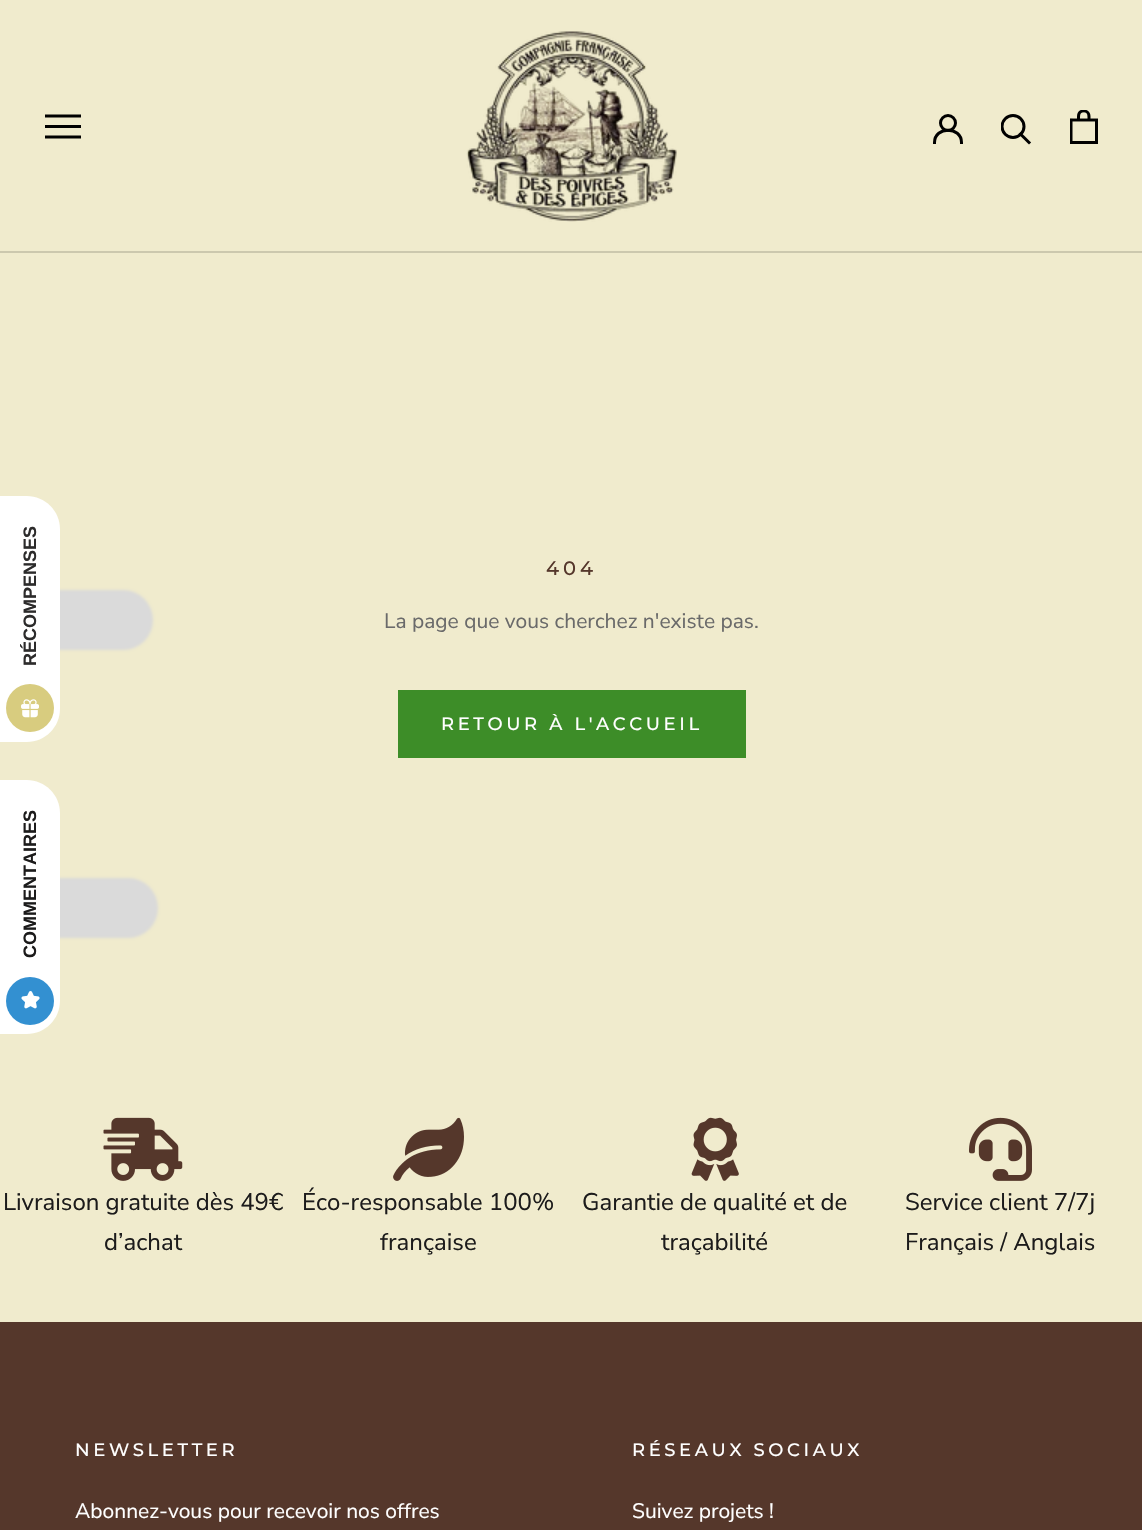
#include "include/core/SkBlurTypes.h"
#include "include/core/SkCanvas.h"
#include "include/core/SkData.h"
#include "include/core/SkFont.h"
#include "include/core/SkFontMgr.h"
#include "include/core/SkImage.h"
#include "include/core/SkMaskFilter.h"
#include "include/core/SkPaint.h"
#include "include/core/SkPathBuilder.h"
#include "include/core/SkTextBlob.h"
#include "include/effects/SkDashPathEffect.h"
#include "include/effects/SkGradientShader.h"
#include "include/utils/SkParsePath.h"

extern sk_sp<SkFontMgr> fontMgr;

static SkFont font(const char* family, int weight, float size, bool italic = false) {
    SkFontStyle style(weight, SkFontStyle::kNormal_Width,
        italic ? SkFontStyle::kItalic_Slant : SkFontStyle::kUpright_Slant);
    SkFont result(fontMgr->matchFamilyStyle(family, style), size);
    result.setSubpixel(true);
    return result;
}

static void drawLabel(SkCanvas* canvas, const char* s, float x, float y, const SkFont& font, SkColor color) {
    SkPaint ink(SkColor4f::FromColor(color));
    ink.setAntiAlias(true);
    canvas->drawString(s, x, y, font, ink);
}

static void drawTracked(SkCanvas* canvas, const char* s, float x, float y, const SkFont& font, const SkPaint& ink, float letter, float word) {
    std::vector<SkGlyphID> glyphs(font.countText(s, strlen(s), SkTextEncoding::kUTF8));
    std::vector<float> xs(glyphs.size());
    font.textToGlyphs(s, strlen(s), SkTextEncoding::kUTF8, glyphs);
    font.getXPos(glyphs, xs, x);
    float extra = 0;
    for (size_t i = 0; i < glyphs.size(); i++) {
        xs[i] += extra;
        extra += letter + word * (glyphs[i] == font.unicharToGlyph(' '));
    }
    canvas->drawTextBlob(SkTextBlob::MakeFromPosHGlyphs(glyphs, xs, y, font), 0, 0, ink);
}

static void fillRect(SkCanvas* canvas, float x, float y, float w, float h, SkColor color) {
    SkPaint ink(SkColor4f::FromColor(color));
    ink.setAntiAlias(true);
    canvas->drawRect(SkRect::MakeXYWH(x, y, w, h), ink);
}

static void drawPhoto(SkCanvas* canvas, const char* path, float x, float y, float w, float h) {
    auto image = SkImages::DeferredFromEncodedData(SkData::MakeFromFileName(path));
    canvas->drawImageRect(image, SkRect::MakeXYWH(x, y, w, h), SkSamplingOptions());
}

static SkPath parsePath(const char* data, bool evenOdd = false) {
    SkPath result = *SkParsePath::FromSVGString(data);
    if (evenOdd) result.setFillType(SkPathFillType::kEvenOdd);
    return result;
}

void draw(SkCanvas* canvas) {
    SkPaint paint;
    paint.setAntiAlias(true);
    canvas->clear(0xFFF0EBCD);
    paint.setColor(0xFFDADADA);
    paint.setMaskFilter(SkMaskFilter::MakeBlur(kNormal_SkBlurStyle, 1.5f));
    canvas->drawRoundRect(SkRect::MakeXYWH(-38, 590, 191, 60), 33, 33, paint);
    paint.setMaskFilter(nullptr);
    paint.setColor(0xFFFFFFFF);
    canvas->drawPath(parsePath("M0 742V496H27C45 496 60 511 60 529V709C60 727 45 742 27 742Z"), paint);
    SkFont font1 = font("Liberation Sans", 700, 18);
    canvas->save();
    canvas->rotate(-90, 36, 666);
    drawLabel(canvas, "RÉCOMPENSES", 36, 666, font1, 0xFF2C2B2B);
    canvas->restore();
    paint.setColor(0xFFD8CC7F);
    canvas->drawCircle(30, 708, 24, paint);
    drawPhoto(canvas, "assets/img1.png", 21, 699, 18, 19);
    paint.setColor(0xFFDADADA);
    paint.setMaskFilter(SkMaskFilter::MakeBlur(kNormal_SkBlurStyle, 1.5f));
    canvas->drawRoundRect(SkRect::MakeXYWH(-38, 878, 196, 60), 33, 33, paint);
    paint.setMaskFilter(nullptr);
    paint.setColor(0xFFFFFFFF);
    canvas->drawPath(parsePath("M0 1034V780H27C45 780 60 795 60 813V1001C60 1019 45 1034 27 1034Z"), paint);
    canvas->save();
    canvas->rotate(-90, 36, 958);
    drawLabel(canvas, "COMMENTAIRES", 36, 958, font1, 0xFF1C1B1B);
    canvas->restore();
    paint.setColor(0xFF3390D1);
    canvas->drawCircle(30, 1001, 24, paint);
    drawPhoto(canvas, "assets/img2.png", 21, 991, 19, 18);
    fillRect(canvas, 0, 251, 1142, 2, 0xFFCCC8AE);
    paint.setColor(0xFF000000);
    canvas->drawPath(parsePath("M45 138.5V135.5H81V138.5ZM45 125H81V128H45ZM45 114.5H81V117.5H45Z"), paint);
    drawPhoto(canvas, "assets/img3.png", 466, 31, 211, 191);
    paint.setStroke(true);
    paint.setStrokeWidth(3);
    paint.setStrokeCap(SkPaint::kSquare_Cap);
    canvas->drawPath(parsePath("M934.5 142.5C934.5 126 961.5 126 961.5 142.5"), paint);
    paint.setStrokeCap(SkPaint::kButt_Cap);
    canvas->drawCircle(948, 123, 7.5f, paint);
    paint.setStrokeCap(SkPaint::kSquare_Cap);
    canvas->drawPath(parsePath("M1029 142.5L1020.5 134"), paint);
    canvas->save();
    canvas->clipRect(SkRect::MakeXYWH(1001, 114, 31, 32));
    paint.setStrokeCap(SkPaint::kButt_Cap);
    canvas->drawCircle(1013, 126.5f, 11, paint);
    canvas->restore();
    drawPhoto(canvas, "assets/img4.png", 1070, 110, 28, 34);
    SkFont font2 = font("Montserrat", 500, 19.5f);
    paint.setStroke(false);
    paint.setColor(0xFF55372B);
    drawTracked(canvas, "404", 546, 575, font2, paint, 4, 0);
    SkFont font3 = font("Nunito Sans", 400, 21);
    drawLabel(canvas, "La page que vous cherchez n'existe pas.", 384, 628, font3, 0xFF6A6A6A);
    paint.setStroke(true);
    paint.setStrokeWidth(2);
    paint.setColor(0xFF3D8D28);
    canvas->drawRect(SkRect::MakeXYWH(399, 691, 346, 66), paint);
    fillRect(canvas, 400, 692, 344, 64, 0xFF3D8D28);
    SkFont font4 = font("Montserrat", 500, 18);
    paint.setStroke(false);
    paint.setColor(0xFFFFFFFF);
    drawTracked(canvas, "RETOUR À L'ACCUEIL", 441, 730, font4, paint, 3.6f, 0);
    drawPhoto(canvas, "assets/img5.png", 103, 1117, 80, 64);
    SkFont font5 = font("Nunito Sans", 400, 24);
    drawLabel(canvas, "Livraison gratuite dès 49€", 3, 1210, font5, 0xFF1C1B1B);
    drawLabel(canvas, "d’achat", 104, 1250, font5, 0xFF1C1B1B);
    drawPhoto(canvas, "assets/img6.png", 393, 1117, 71, 64);
    drawLabel(canvas, "Éco-responsable 100%", 302, 1210, font5, 0xFF1C1B1B);
    drawLabel(canvas, "française", 380, 1250, font5, 0xFF1C1B1B);
    drawPhoto(canvas, "assets/img7.png", 691, 1117, 48, 64);
    drawLabel(canvas, "Garantie de qualité et de", 582, 1210, font5, 0xFF1C1B1B);
    drawLabel(canvas, "traçabilité", 661, 1250, font5, 0xFF1C1B1B);
    drawPhoto(canvas, "assets/img8.png", 969, 1117, 63, 64);
    drawLabel(canvas, "Service client 7/7j", 905, 1210, font5, 0xFF1C1B1B);
    drawLabel(canvas, "Français / Anglais", 905, 1250, font5, 0xFF1C1B1B);
    fillRect(canvas, 0, 1322, 1142, 208, 0xFF55372B);
    drawTracked(canvas, "NEWSLETTER", 75, 1456, font4, paint, 3.6f, 0);
    drawLabel(canvas, "Abonnez-vous pour recevoir nos offres", 75, 1518, font3, 0xFFFFFFFF);
    drawTracked(canvas, "RÉSEAUX SOCIAUX", 632, 1456, font4, paint, 3.6f, 0);
    drawLabel(canvas, "Suivez projets !", 632, 1518, font3, 0xFFFFFFFF);
}
